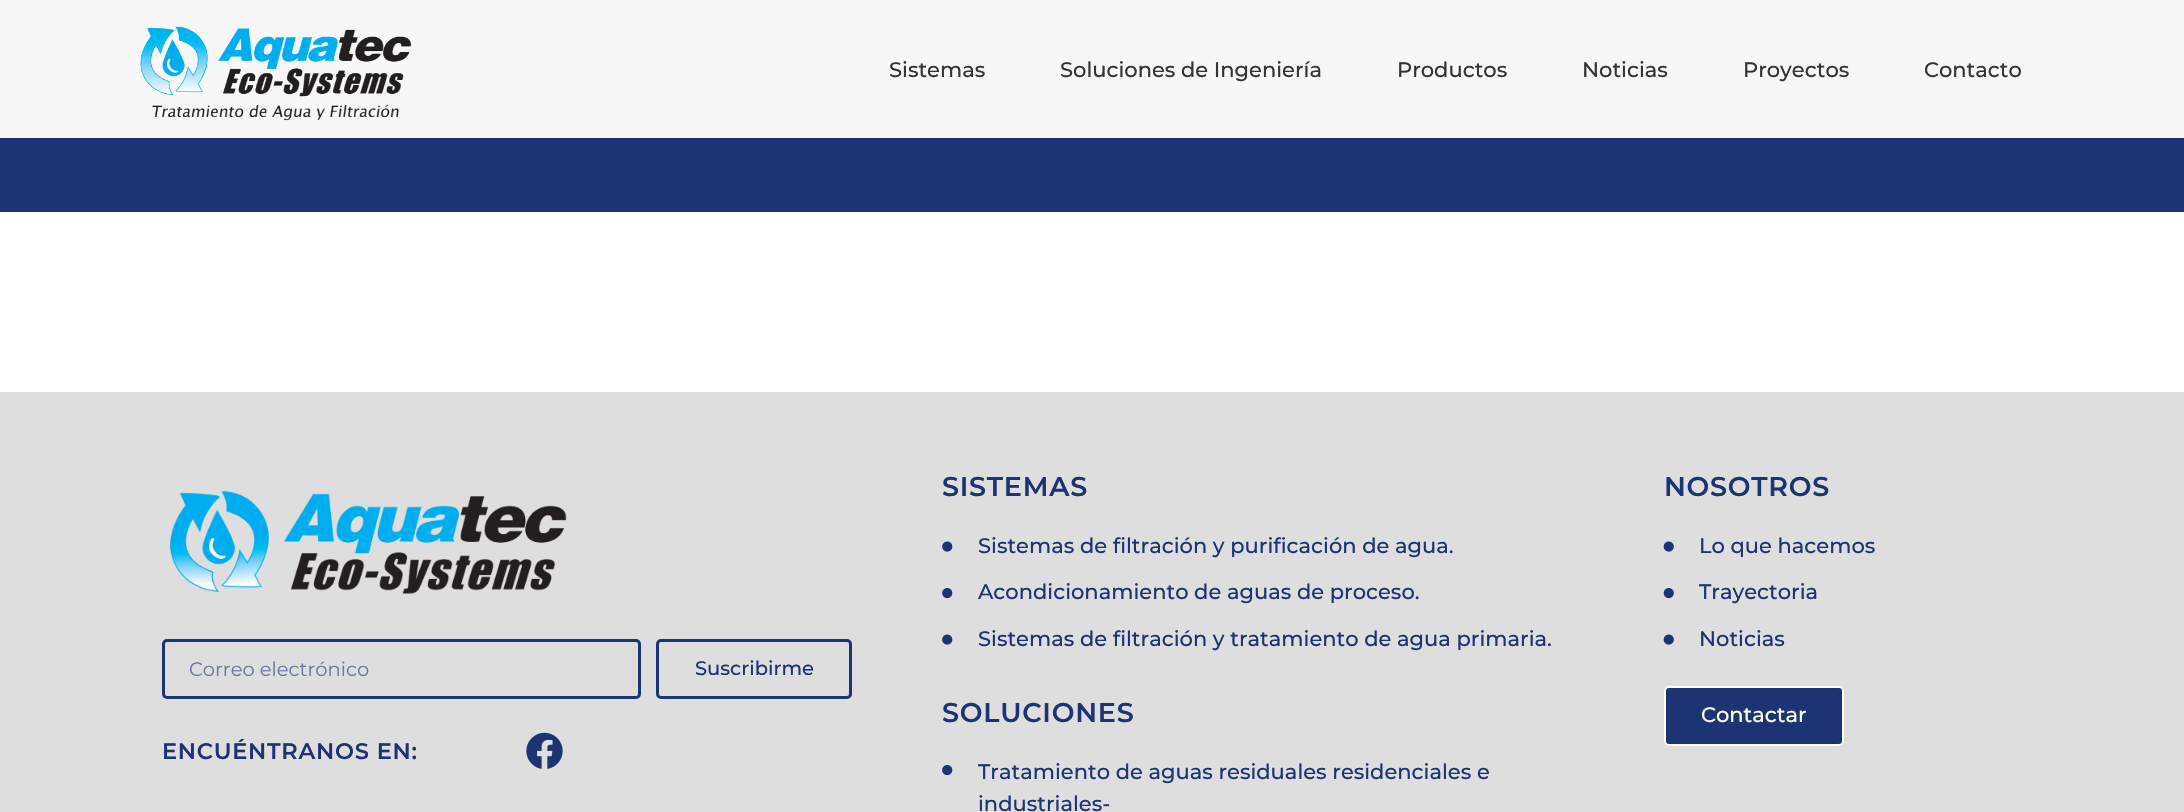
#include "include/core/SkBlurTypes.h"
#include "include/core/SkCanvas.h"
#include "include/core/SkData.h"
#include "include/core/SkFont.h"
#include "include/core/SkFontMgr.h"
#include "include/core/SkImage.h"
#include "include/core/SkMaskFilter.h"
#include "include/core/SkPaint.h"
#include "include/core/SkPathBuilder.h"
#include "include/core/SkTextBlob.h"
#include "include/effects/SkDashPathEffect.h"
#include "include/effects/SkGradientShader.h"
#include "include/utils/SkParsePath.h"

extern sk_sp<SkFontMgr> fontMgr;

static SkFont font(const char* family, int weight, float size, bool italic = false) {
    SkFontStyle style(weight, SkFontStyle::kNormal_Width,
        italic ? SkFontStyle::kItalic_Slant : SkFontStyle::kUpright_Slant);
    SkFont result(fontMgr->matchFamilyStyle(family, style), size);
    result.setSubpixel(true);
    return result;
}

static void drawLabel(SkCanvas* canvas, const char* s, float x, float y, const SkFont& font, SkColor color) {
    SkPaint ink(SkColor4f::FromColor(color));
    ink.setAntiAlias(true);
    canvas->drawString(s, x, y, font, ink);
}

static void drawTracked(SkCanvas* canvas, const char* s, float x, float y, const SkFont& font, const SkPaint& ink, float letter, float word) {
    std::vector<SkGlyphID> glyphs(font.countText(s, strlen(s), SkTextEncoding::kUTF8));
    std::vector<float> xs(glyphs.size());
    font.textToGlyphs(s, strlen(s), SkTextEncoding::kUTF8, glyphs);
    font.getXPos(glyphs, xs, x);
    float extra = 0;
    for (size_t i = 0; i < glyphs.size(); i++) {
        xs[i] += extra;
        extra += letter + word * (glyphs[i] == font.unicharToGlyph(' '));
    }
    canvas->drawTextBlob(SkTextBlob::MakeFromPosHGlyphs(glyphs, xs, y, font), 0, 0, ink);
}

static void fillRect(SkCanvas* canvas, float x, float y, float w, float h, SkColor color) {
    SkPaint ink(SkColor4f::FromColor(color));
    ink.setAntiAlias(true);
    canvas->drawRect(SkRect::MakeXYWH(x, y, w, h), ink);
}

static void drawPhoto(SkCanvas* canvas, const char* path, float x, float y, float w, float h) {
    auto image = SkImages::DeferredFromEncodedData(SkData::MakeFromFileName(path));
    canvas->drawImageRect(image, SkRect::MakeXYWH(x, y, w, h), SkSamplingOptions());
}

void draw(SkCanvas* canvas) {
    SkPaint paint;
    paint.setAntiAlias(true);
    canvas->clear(0xFFFFFFFF);
    fillRect(canvas, 0, 0, 2184, 138, 0xFFF7F7F7);
    drawPhoto(canvas, "assets/img1.png", 140, 26, 272, 95);
    SkFont font1 = font("Montserrat", 500, 21);
    drawLabel(canvas, "Sistemas", 889, 77, font1, 0xFF343434);
    drawLabel(canvas, "Soluciones de Ingeniería", 1060, 77, font1, 0xFF343434);
    drawLabel(canvas, "Productos", 1397, 77, font1, 0xFF343434);
    drawLabel(canvas, "Noticias", 1582, 77, font1, 0xFF343434);
    drawLabel(canvas, "Proyectos", 1743, 77, font1, 0xFF343434);
    drawLabel(canvas, "Contacto", 1924, 77, font1, 0xFF343434);
    fillRect(canvas, 0, 138, 2184, 74, 0xFF1C3474);
    fillRect(canvas, 0, 392, 2184, 420, 0xFFDEDEDE);
    drawPhoto(canvas, "assets/img2.png", 170, 491, 397, 103);
    paint.setStroke(true);
    paint.setStrokeWidth(3);
    paint.setColor(0xFF1C3474);
    canvas->drawRoundRect(SkRect::MakeXYWH(163.5f, 640.5f, 476, 57), 3.5f, 3.5f, paint);
    SkFont font2 = font("Montserrat", 400, 19.5f);
    drawLabel(canvas, "Correo electrónico", 189, 676, font2, 0xFF6A789E);
    canvas->drawRoundRect(SkRect::MakeXYWH(657.5f, 640.5f, 193, 57), 3.5f, 3.5f, paint);
    SkFont font3 = font("Montserrat", 500, 19.5f);
    drawLabel(canvas, "Suscribirme", 695, 675, font3, 0xFF1C3474);
    SkFont font4 = font("Montserrat", 600, 22.5f);
    paint.setStroke(false);
    drawTracked(canvas, "ENCUÉNTRANOS EN:", 162, 759, font4, paint, 0.75f, 0);
    drawPhoto(canvas, "assets/img3.png", 526, 732, 37, 37);
    SkFont font5 = font("Montserrat", 600, 27);
    drawTracked(canvas, "SISTEMAS", 942, 496, font5, paint, 0.75f, 0);
    drawPhoto(canvas, "assets/img4.png", 942, 541, 11, 11);
    drawLabel(canvas, "Sistemas de filtración y purificación de agua.", 978, 553, font1, 0xFF1C3474);
    drawPhoto(canvas, "assets/img5.png", 942, 588, 11, 11);
    drawLabel(canvas, "Acondicionamiento de aguas de proceso.", 978, 599, font1, 0xFF1C3474);
    drawPhoto(canvas, "assets/img4.png", 942, 634, 11, 11);
    drawLabel(canvas, "Sistemas de filtración y tratamiento de agua primaria.", 978, 646, font1, 0xFF1C3474);
    drawTracked(canvas, "SOLUCIONES", 942, 722, font5, paint, 0.75f, 0);
    drawPhoto(canvas, "assets/img5.png", 942, 765, 11, 11);
    drawLabel(canvas, "Tratamiento de aguas residuales residenciales e", 978, 779, font1, 0xFF1C3474);
    drawLabel(canvas, "industriales-", 978, 811, font1, 0xFF1C3474);
    drawTracked(canvas, "NOSOTROS", 1664, 496, font5, paint, 0.75f, 0);
    drawPhoto(canvas, "assets/img6.png", 1663, 541, 11, 11);
    drawLabel(canvas, "Lo que hacemos", 1699, 553, font1, 0xFF1C3474);
    drawPhoto(canvas, "assets/img7.png", 1663, 588, 11, 11);
    drawLabel(canvas, "Trayectoria", 1699, 599, font1, 0xFF1C3474);
    drawPhoto(canvas, "assets/img6.png", 1663, 634, 11, 11);
    drawLabel(canvas, "Noticias", 1699, 646, font1, 0xFF1C3474);
    canvas->drawRoundRect(SkRect::MakeXYWH(1665, 687, 178, 58), 4, 4, paint);
    paint.setStroke(true);
    paint.setStrokeWidth(2);
    paint.setColor(0xFFFFFFFF);
    canvas->drawRoundRect(SkRect::MakeXYWH(1665, 687, 178, 58), 4, 4, paint);
    drawLabel(canvas, "Contactar", 1701, 722, font1, 0xFFFFFFFF);
}
